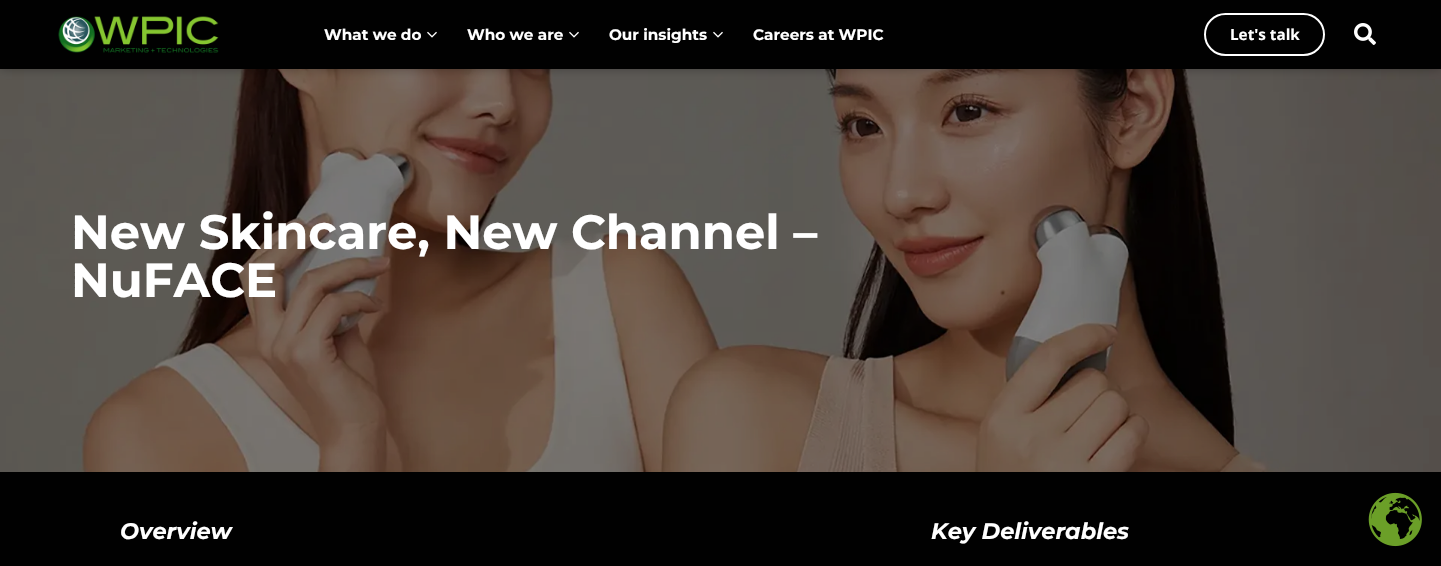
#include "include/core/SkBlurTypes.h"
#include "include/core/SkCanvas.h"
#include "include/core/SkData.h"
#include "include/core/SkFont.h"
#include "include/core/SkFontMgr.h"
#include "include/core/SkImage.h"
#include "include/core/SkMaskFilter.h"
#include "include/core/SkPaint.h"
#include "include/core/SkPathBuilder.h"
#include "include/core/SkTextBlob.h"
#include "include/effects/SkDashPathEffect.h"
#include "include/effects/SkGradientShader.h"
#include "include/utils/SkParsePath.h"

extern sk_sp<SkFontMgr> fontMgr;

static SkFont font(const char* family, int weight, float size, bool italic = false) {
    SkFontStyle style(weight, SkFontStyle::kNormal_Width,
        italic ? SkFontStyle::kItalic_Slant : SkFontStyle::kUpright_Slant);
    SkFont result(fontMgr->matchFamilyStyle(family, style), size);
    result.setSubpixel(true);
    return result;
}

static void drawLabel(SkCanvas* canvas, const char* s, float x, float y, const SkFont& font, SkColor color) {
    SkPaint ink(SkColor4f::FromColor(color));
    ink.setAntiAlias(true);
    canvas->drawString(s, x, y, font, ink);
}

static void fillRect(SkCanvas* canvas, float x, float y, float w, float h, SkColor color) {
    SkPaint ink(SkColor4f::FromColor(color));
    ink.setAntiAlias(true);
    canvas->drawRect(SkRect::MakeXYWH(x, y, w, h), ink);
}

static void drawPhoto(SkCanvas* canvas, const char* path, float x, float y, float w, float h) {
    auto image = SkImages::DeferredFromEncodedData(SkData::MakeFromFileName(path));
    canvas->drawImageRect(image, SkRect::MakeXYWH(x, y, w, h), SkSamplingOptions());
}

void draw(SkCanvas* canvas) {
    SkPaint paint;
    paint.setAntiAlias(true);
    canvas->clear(0xFFFFFFFF);
    drawPhoto(canvas, "assets/img4.png", 0, 69, 1441, 403);
    paint.setColor(0x4D000000);
    paint.setMaskFilter(SkMaskFilter::MakeBlur(kNormal_SkBlurStyle, 5));
    canvas->drawRect(SkRect::MakeXYWH(0, 0, 1441, 69), paint);
    paint.setMaskFilter(nullptr);
    fillRect(canvas, 0, 0, 1441, 69, 0xFF010101);
    drawPhoto(canvas, "assets/img1.png", 58, 16, 161, 37);
    SkFont font1 = font("Montserrat", 700, 15.25f);
    drawLabel(canvas, "What we do", 324, 40, font1, 0xFFFFFFFF);
    drawPhoto(canvas, "assets/img2.png", 427, 31, 10, 7);
    drawLabel(canvas, "Who we are", 467, 40, font1, 0xFFFFFFFF);
    drawPhoto(canvas, "assets/img2.png", 569, 31, 10, 7);
    drawLabel(canvas, "Our insights", 609, 40, font1, 0xFFFFFFFF);
    drawPhoto(canvas, "assets/img2.png", 713, 31, 10, 7);
    drawLabel(canvas, "Careers at WPIC", 753, 40, font1, 0xFFFFFFFF);
    paint.setStroke(true);
    paint.setStrokeWidth(2);
    paint.setColor(0xFFFFFFFF);
    canvas->drawRoundRect(SkRect::MakeXYWH(1205, 14, 119, 41), 20.5f, 20.5f, paint);
    SkFont font2 = font("Open Sans", 700, 15.25f);
    drawLabel(canvas, "Let's talk", 1230, 40, font2, 0xFFFFFFFF);
    drawPhoto(canvas, "assets/img3.png", 1354, 23, 22, 22);
    SkFont font3 = font("Montserrat", 700, 48);
    drawLabel(canvas, "New Skincare, New Channel –", 71, 249, font3, 0xFFFFFFFF);
    drawLabel(canvas, "NuFACE", 71, 297, font3, 0xFFFFFFFF);
    fillRect(canvas, 0, 472, 1441, 94, 0xFF010101);
    SkFont font4 = font("Montserrat", 700, 22.5f, true);
    drawLabel(canvas, "Overview", 120, 539, font4, 0xFFFFFFFF);
    drawLabel(canvas, "Key Deliverables", 931, 539, font4, 0xFFFFFFFF);
    drawPhoto(canvas, "assets/img5.png", 1368, 492, 54, 55);
}
